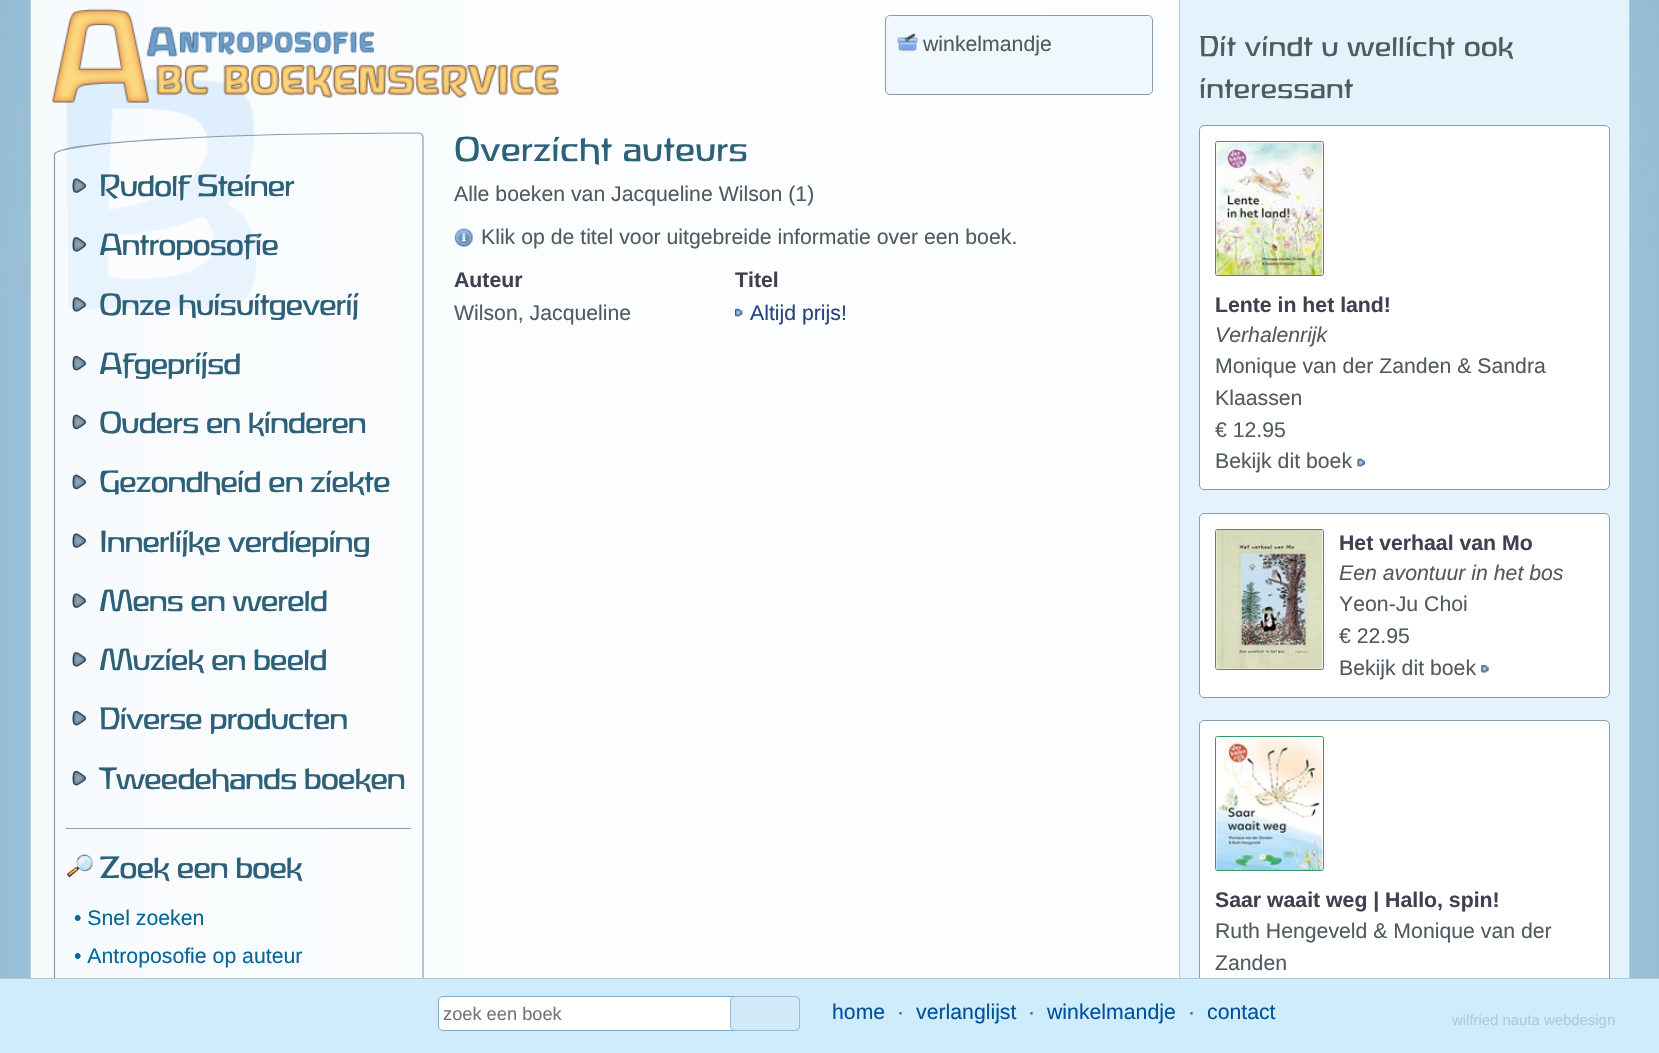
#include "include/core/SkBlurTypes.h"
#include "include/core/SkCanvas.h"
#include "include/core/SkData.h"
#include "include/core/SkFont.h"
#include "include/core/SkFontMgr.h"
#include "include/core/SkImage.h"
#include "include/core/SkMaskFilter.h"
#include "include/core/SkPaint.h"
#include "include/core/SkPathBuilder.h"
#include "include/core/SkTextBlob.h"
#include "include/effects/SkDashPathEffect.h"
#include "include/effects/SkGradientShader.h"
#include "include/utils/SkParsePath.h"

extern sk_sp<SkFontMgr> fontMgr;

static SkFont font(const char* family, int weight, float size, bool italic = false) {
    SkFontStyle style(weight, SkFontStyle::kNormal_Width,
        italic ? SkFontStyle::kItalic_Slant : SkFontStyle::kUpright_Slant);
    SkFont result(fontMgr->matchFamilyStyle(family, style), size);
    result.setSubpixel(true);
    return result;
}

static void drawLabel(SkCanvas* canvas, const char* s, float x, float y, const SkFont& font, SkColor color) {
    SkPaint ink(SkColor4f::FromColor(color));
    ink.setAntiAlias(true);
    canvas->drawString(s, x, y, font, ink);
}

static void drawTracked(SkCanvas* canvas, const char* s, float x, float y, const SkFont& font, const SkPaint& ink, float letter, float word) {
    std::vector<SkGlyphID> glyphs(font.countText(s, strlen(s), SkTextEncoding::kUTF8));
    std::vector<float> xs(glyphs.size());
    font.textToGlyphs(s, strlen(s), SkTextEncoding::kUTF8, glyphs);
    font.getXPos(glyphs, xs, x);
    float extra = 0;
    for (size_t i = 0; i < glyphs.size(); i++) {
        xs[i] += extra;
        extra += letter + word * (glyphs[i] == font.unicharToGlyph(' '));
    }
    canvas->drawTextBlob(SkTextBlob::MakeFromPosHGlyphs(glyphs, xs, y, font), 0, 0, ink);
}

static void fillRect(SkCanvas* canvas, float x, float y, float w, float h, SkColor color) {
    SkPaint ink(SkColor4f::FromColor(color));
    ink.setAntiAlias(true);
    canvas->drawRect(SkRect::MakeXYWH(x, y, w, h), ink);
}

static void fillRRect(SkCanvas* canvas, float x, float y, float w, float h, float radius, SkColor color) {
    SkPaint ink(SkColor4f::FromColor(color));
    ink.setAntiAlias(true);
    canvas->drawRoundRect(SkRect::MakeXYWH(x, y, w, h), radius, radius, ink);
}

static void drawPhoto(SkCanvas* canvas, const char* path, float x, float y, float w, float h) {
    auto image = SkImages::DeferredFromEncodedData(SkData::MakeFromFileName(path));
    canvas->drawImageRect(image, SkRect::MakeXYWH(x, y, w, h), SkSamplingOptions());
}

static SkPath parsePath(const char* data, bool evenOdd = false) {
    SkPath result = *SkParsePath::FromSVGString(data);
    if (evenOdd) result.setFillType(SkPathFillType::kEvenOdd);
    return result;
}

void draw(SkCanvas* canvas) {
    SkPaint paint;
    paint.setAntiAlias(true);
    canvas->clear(0xFFFFFFFF);
    {
        const SkColor colors[] = {0xFF91B8D2, 0xFFB2D6EC, 0xFFE3F2FB, 0xFFB2D6EC, 0xFF91B8D2};
        const float stops[] = {0, 0.25f, 0.5f, 0.75f, 1};
        const SkPoint ends[] = {{0, 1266}, {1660, 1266}};
        paint.setShader(SkGradientShader::MakeLinear(ends, colors, stops, 5, SkTileMode::kClamp));
        paint.setAlpha(255);
    }
    canvas->drawRect(SkRect::MakeXYWH(0, 0, 1659, 978), paint);
    canvas->save();
    canvas->clipPath(parsePath("M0 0H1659V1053H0ZM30 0H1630V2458H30Z", true), true);
    paint.setShader(nullptr);
    paint.setColor(0xE6A2C6DA);
    paint.setMaskFilter(SkMaskFilter::MakeBlur(kNormal_SkBlurStyle, 131));
    canvas->drawRect(SkRect::MakeXYWH(30, 0, 1600, 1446), paint);
    paint.setMaskFilter(nullptr);
    canvas->restore();
    drawPhoto(canvas, "assets/img1.png", 31, 0, 1148, 978);
    fillRect(canvas, 1629, 0, 1, 978, 0xFFB2CBDB);
    fillRect(canvas, 30, 0, 1, 978, 0xFFB2CBDB);
    drawPhoto(canvas, "assets/img2.png", 66, 135, 191, 174);
    paint.setStroke(true);
    paint.setStrokeWidth(1.2f);
    paint.setColor(0xFF889DAF);
    canvas->drawPath(parsePath("M419 133C421 133 423 135 423 137.5V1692.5C423 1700.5 260 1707 58.5 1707C56.5 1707 54.5 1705 54.5 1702.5V154.5C54.5 143 217.5 133 419 133Z"), paint);
    drawPhoto(canvas, "assets/img3.png", 72, 178, 15, 15);
    SkFont font1 = font("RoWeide", 400, 31.9f);
    paint.setStroke(false);
    paint.setColor(0xFF2D6079);
    drawTracked(canvas, "Rudolf Steiner", 99, 196, font1, paint, -1.25f, 0);
    drawPhoto(canvas, "assets/img4.png", 72, 237, 15, 15);
    drawTracked(canvas, "Antroposofie", 99, 255, font1, paint, -1.25f, 0);
    drawPhoto(canvas, "assets/img5.png", 72, 297, 15, 15);
    drawTracked(canvas, "Onze huisuitgeverij", 99, 315, font1, paint, -1.25f, 0);
    drawPhoto(canvas, "assets/img6.png", 72, 355, 15, 16);
    drawTracked(canvas, "Afgeprijsd", 99, 374, font1, paint, -1.25f, 0);
    drawPhoto(canvas, "assets/img7.png", 72, 414, 15, 16);
    drawTracked(canvas, "Ouders en kinderen", 99, 433, font1, paint, -1.25f, 0);
    drawPhoto(canvas, "assets/img7.png", 72, 474, 15, 16);
    drawTracked(canvas, "Gezondheid en ziekte", 99, 492, font1, paint, -1.25f, 0);
    drawPhoto(canvas, "assets/img8.png", 72, 533, 15, 15);
    drawTracked(canvas, "Innerlijke verdieping", 99, 552, font1, paint, -1.25f, 0);
    drawPhoto(canvas, "assets/img9.png", 72, 593, 15, 15);
    drawTracked(canvas, "Mens en wereld", 99, 611, font1, paint, -1.25f, 0);
    drawPhoto(canvas, "assets/img10.png", 72, 652, 15, 15);
    drawTracked(canvas, "Muziek en beeld", 99, 670, font1, paint, -1.25f, 0);
    drawPhoto(canvas, "assets/img6.png", 72, 710, 15, 16);
    drawTracked(canvas, "Diverse producten", 99, 729, font1, paint, -1.25f, 0);
    drawPhoto(canvas, "assets/img6.png", 72, 770, 15, 16);
    drawTracked(canvas, "Tweedehands boeken", 99, 789, font1, paint, -1.25f, 0);
    fillRect(canvas, 66, 828, 345, 1, 0xFF889DAF);
    drawPhoto(canvas, "assets/img11.png", 67, 854, 26, 24);
    drawTracked(canvas, "Zoek een boek", 99, 878, font1, paint, -1.25f, 0);
    SkFont font2 = font("Liberation Sans", 400, 21.25f);
    drawLabel(canvas, "• Snel zoeken", 74, 925, font2, 0xFF00679A);
    drawLabel(canvas, "• Antroposofie op auteur", 74, 963, font2, 0xFF00679A);
    fillRRect(canvas, 885, 15, 268, 80, 5, 0xFFE6F2FB);
    drawPhoto(canvas, "assets/img12.png", 885, 15, 267, 80);
    paint.setStroke(true);
    paint.setStrokeWidth(1);
    paint.setColor(0xFF889CAF);
    canvas->drawRoundRect(SkRect::MakeXYWH(885.5f, 15.5f, 267, 79), 4.5f, 4.5f, paint);
    drawPhoto(canvas, "assets/img13.png", 897, 33, 21, 19);
    drawLabel(canvas, "winkelmandje", 923, 51, font2, 0xFF505A5F);
    SkFont font3 = font("RoWeide", 400, 36);
    drawLabel(canvas, "Overzicht auteurs", 454, 161, font3, 0xFF2D6079);
    drawLabel(canvas, "Alle boeken van Jacqueline Wilson (1)", 454, 201, font2, 0xFF505A5F);
    drawPhoto(canvas, "assets/img14.png", 454, 228, 19, 19);
    drawLabel(canvas, "Klik op de titel voor uitgebreide informatie over een boek.", 481, 244, font2, 0xFF505A5F);
    SkFont font4 = font("Liberation Sans", 700, 21.25f);
    drawLabel(canvas, "Auteur", 454, 287, font4, 0xFF404050);
    drawLabel(canvas, "Titel", 735, 287, font4, 0xFF404050);
    drawLabel(canvas, "Wilson, Jacqueline", 454, 320, font2, 0xFF505A5F);
    drawPhoto(canvas, "assets/img15.png", 735, 308, 8, 9);
    drawLabel(canvas, "Altijd prijs!", 750, 320, font2, 0xFF25437D);
    fillRect(canvas, 1180, 0, 449, 978, 0xFFE3F2FB);
    fillRect(canvas, 1179, 0, 1, 978, 0xFFB6C9DC);
    SkFont font5 = font("RoWeide", 400, 29.75f);
    drawLabel(canvas, "Dit vindt u wellicht ook", 1199, 56, font5, 0xFF505A5F);
    drawLabel(canvas, "interessant", 1199, 98, font5, 0xFF505A5F);
    paint.setStroke(false);
    paint.setColor(0xFFFFFFFF);
    canvas->drawRoundRect(SkRect::MakeXYWH(1199.5f, 125.5f, 410, 364), 4.5f, 4.5f, paint);
    paint.setStroke(true);
    paint.setColor(0xFF889DAF);
    canvas->drawRoundRect(SkRect::MakeXYWH(1199.5f, 125.5f, 410, 364), 4.5f, 4.5f, paint);
    paint.setColor(0xFF339966);
    canvas->drawRoundRect(SkRect::MakeXYWH(1215.5f, 141.5f, 108, 134), 2, 2, paint);
    drawPhoto(canvas, "assets/img16.png", 1216, 142, 107, 133);
    drawLabel(canvas, "Lente in het land!", 1215, 312, font4, 0xFF404050);
    SkFont font6 = font("Liberation Sans", 400, 21.25f, true);
    drawLabel(canvas, "Verhalenrijk", 1215, 342, font6, 0xFF505A5F);
    drawLabel(canvas, "Monique van der Zanden & Sandra", 1215, 373, font2, 0xFF505A5F);
    drawLabel(canvas, "Klaassen", 1215, 405, font2, 0xFF505A5F);
    drawLabel(canvas, "€ 12.95", 1215, 437, font2, 0xFF505A5F);
    drawLabel(canvas, "Bekijk dit boek", 1215, 468, font2, 0xFF505A5F);
    drawPhoto(canvas, "assets/img17.png", 1357, 458, 8, 9);
    paint.setStroke(false);
    paint.setColor(0xFFFFFFFF);
    canvas->drawRoundRect(SkRect::MakeXYWH(1199.5f, 513.5f, 410, 184), 4.5f, 4.5f, paint);
    paint.setStroke(true);
    paint.setColor(0xFF889DAF);
    canvas->drawRoundRect(SkRect::MakeXYWH(1199.5f, 513.5f, 410, 184), 4.5f, 4.5f, paint);
    paint.setColor(0xFF339966);
    canvas->drawRoundRect(SkRect::MakeXYWH(1215.5f, 529.5f, 108, 140), 2, 2, paint);
    drawPhoto(canvas, "assets/img18.png", 1216, 530, 107, 139);
    drawLabel(canvas, "Het verhaal van Mo", 1339, 550, font4, 0xFF404050);
    drawLabel(canvas, "Een avontuur in het bos", 1339, 580, font6, 0xFF505A5F);
    drawLabel(canvas, "Yeon-Ju Choi", 1339, 611, font2, 0xFF505A5F);
    drawLabel(canvas, "€ 22.95", 1339, 643, font2, 0xFF505A5F);
    drawLabel(canvas, "Bekijk dit boek", 1339, 675, font2, 0xFF505A5F);
    drawPhoto(canvas, "assets/img19.png", 1481, 665, 8, 8);
    paint.setStroke(false);
    paint.setColor(0xFFFFFFFF);
    canvas->drawRoundRect(SkRect::MakeXYWH(1199.5f, 720.5f, 410, 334), 4.5f, 4.5f, paint);
    paint.setStroke(true);
    paint.setColor(0xFF889DAF);
    canvas->drawRoundRect(SkRect::MakeXYWH(1199.5f, 720.5f, 410, 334), 4.5f, 4.5f, paint);
    paint.setColor(0xFF339966);
    canvas->drawRoundRect(SkRect::MakeXYWH(1215.5f, 736.5f, 108, 134), 2, 2, paint);
    drawPhoto(canvas, "assets/img20.png", 1216, 737, 107, 133);
    drawLabel(canvas, "Saar waait weg | Hallo, spin!", 1215, 907, font4, 0xFF404050);
    drawLabel(canvas, "Ruth Hengeveld & Monique van der", 1215, 938, font2, 0xFF505A5F);
    drawLabel(canvas, "Zanden", 1215, 970, font2, 0xFF505A5F);
    fillRect(canvas, 0, 979, 1659, 74, 0xFFCFECFD);
    fillRect(canvas, 0, 978, 1659, 1, 0xFFADCADC);
    paint.setStroke(false);
    paint.setColor(0xFFFFFFFF);
    canvas->drawRoundRect(SkRect::MakeXYWH(438.5f, 996.5f, 361, 34), 4.5f, 4.5f, paint);
    paint.setStroke(true);
    paint.setColor(0xFF7BABC3);
    canvas->drawRoundRect(SkRect::MakeXYWH(438.5f, 996.5f, 361, 34), 4.5f, 4.5f, paint);
    SkFont font7 = font("Liberation Sans", 400, 18.25f);
    drawLabel(canvas, "zoek een boek", 443, 1020, font7, 0xFF757575);
    paint.setStroke(false);
    paint.setColor(0xFFD2EAF7);
    canvas->drawRoundRect(SkRect::MakeXYWH(730.5f, 996.5f, 69, 34), 4.5f, 4.5f, paint);
    paint.setStroke(true);
    paint.setColor(0xFF9CB7CE);
    canvas->drawRoundRect(SkRect::MakeXYWH(730.5f, 996.5f, 69, 34), 4.5f, 4.5f, paint);
    drawLabel(canvas, "home", 832, 1019, font2, 0xFF00509A);
    drawLabel(canvas, "·", 897, 1019, font2, 0xFF505A5F);
    drawLabel(canvas, "verlanglijst", 916, 1019, font2, 0xFF00509A);
    drawLabel(canvas, "·", 1028, 1019, font2, 0xFF505A5F);
    drawLabel(canvas, "winkelmandje", 1047, 1019, font2, 0xFF00509A);
    drawLabel(canvas, "·", 1188, 1019, font2, 0xFF505A5F);
    drawLabel(canvas, "contact", 1207, 1019, font2, 0xFF00509A);
    SkFont font8 = font("Liberation Sans", 400, 14.9f);
    drawLabel(canvas, "wilfried nauta webdesign", 1452, 1025, font8, 0xFFADCADC);
}
